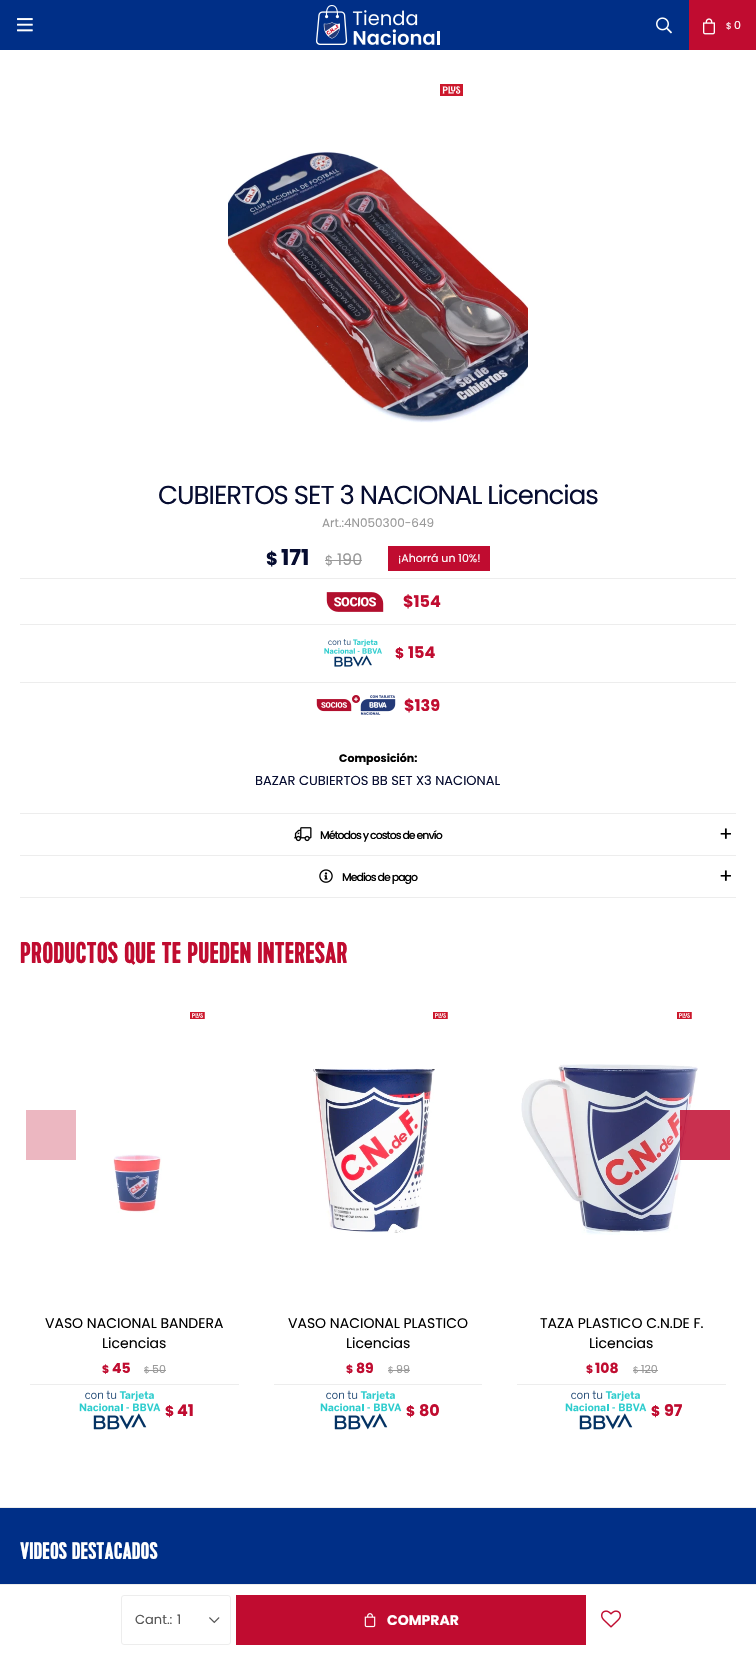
#include "include/core/SkBlurTypes.h"
#include "include/core/SkCanvas.h"
#include "include/core/SkData.h"
#include "include/core/SkFont.h"
#include "include/core/SkFontMgr.h"
#include "include/core/SkImage.h"
#include "include/core/SkMaskFilter.h"
#include "include/core/SkPaint.h"
#include "include/core/SkPathBuilder.h"
#include "include/core/SkTextBlob.h"
#include "include/effects/SkDashPathEffect.h"
#include "include/effects/SkGradientShader.h"
#include "include/utils/SkParsePath.h"

extern sk_sp<SkFontMgr> fontMgr;

static SkFont font(const char* family, int weight, float size, bool italic = false) {
    SkFontStyle style(weight, SkFontStyle::kNormal_Width,
        italic ? SkFontStyle::kItalic_Slant : SkFontStyle::kUpright_Slant);
    SkFont result(fontMgr->matchFamilyStyle(family, style), size);
    result.setSubpixel(true);
    return result;
}

static void drawLabel(SkCanvas* canvas, const char* s, float x, float y, const SkFont& font, SkColor color) {
    SkPaint ink(SkColor4f::FromColor(color));
    ink.setAntiAlias(true);
    canvas->drawString(s, x, y, font, ink);
}

static void drawTracked(SkCanvas* canvas, const char* s, float x, float y, const SkFont& font, const SkPaint& ink, float letter, float word) {
    std::vector<SkGlyphID> glyphs(font.countText(s, strlen(s), SkTextEncoding::kUTF8));
    std::vector<float> xs(glyphs.size());
    font.textToGlyphs(s, strlen(s), SkTextEncoding::kUTF8, glyphs);
    font.getXPos(glyphs, xs, x);
    float extra = 0;
    for (size_t i = 0; i < glyphs.size(); i++) {
        xs[i] += extra;
        extra += letter + word * (glyphs[i] == font.unicharToGlyph(' '));
    }
    canvas->drawTextBlob(SkTextBlob::MakeFromPosHGlyphs(glyphs, xs, y, font), 0, 0, ink);
}

static void fillRect(SkCanvas* canvas, float x, float y, float w, float h, SkColor color) {
    SkPaint ink(SkColor4f::FromColor(color));
    ink.setAntiAlias(true);
    canvas->drawRect(SkRect::MakeXYWH(x, y, w, h), ink);
}

static void drawPhoto(SkCanvas* canvas, const char* path, float x, float y, float w, float h) {
    auto image = SkImages::DeferredFromEncodedData(SkData::MakeFromFileName(path));
    canvas->drawImageRect(image, SkRect::MakeXYWH(x, y, w, h), SkSamplingOptions());
}

void draw(SkCanvas* canvas) {
    SkPaint paint;
    paint.setAntiAlias(true);
    canvas->clear(0xFFFFFFFF);
    fillRect(canvas, 0, 0, 689, 50, 0xFF002F87);
    drawPhoto(canvas, "assets/img1.png", 17, 18, 16, 14);
    drawPhoto(canvas, "assets/img2.png", 316, 5, 124, 40);
    drawPhoto(canvas, "assets/img3.png", 656, 17, 16, 17);
    fillRect(canvas, 689, 0, 67, 50, 0xFFC00C30);
    drawPhoto(canvas, "assets/img4.png", 703, 18, 12, 17);
    SkFont font1 = font("Poppins", 400, 9);
    drawLabel(canvas, "$", 726, 29, font1, 0xFFFFFFFF);
    SkFont font2 = font("Poppins", 400, 11);
    drawLabel(canvas, "0", 734, 29, font2, 0xFFFFFFFF);
    drawPhoto(canvas, "assets/img5.png", 440, 84, 23, 12);
    drawPhoto(canvas, "assets/img6.png", 228, 152, 300, 271);
    SkFont font3 = font("Poppins", 400, 26);
    paint.setColor(0xFF060C30);
    drawTracked(canvas, "CUBIERTOS SET 3 NACIONAL Licencias", 158, 504, font3, paint, -1, 0);
    SkFont font4 = font("Poppins", 400, 12);
    drawLabel(canvas, "Art.:4N050300-649", 322, 527, font4, 0xFF999999);
    SkFont font5 = font("Poppins", 700, 18);
    drawLabel(canvas, "$", 266, 565, font5, 0xFF060C30);
    SkFont font6 = font("Poppins", 700, 22);
    drawLabel(canvas, "171", 281, 565, font6, 0xFF060C30);
    SkFont font7 = font("Poppins", 400, 13);
    drawLabel(canvas, "$", 325, 565, font7, 0xFF999999);
    SkFont font8 = font("Poppins", 400, 16);
    drawLabel(canvas, "190", 337, 565, font8, 0xFF999999);
    fillRect(canvas, 325, 560, 37, 1, 0xFF999999);
    fillRect(canvas, 388, 546, 102, 25, 0xFFC00C30);
    drawLabel(canvas, "¡Ahorrá un 10%!", 398, 562, font2, 0xFFFFFFFF);
    fillRect(canvas, 20, 578, 716, 1, 0xFFEDEDED);
    drawPhoto(canvas, "assets/img7.png", 326, 592, 58, 20);
    SkFont font9 = font("Poppins", 700, 16);
    drawLabel(canvas, "$154", 403, 607, font9, 0xFFC00C30);
    fillRect(canvas, 20, 624, 716, 1, 0xFFEDEDED);
    drawPhoto(canvas, "assets/img8.png", 324, 639, 58, 28);
    SkFont font10 = font("Poppins", 700, 14);
    drawLabel(canvas, "$", 395, 658, font10, 0xFFC00C30);
    drawLabel(canvas, "154", 408, 658, font9, 0xFFC00C30);
    fillRect(canvas, 20, 682, 716, 1, 0xFFEDEDED);
    drawPhoto(canvas, "assets/img9.png", 316, 695, 80, 20);
    drawLabel(canvas, "$139", 404, 711, font9, 0xFFC00C30);
    SkFont font11 = font("Poppins", 700, 11);
    drawLabel(canvas, "Composición:", 339, 762, font11, 0xFF000000);
    drawLabel(canvas, "BAZAR CUBIERTOS BB SET X3 NACIONAL", 255, 785, font7, 0xFF060C30);
    fillRect(canvas, 20, 813, 716, 1, 0xFFEDEDED);
    drawPhoto(canvas, "assets/img10.png", 294, 827, 18, 15);
    SkFont font12 = font("Poppins", 500, 11);
    paint.setColor(0xFF000000);
    drawTracked(canvas, "Métodos y costos de envío", 320, 839, font12, paint, -1, 0);
    SkFont font13 = font("Poppins", 400, 20);
    drawLabel(canvas, "+", 719, 841, font13, 0xFF000000);
    fillRect(canvas, 20, 855, 716, 1, 0xFFEDEDED);
    fillRect(canvas, 20, 897, 716, 1, 0xFFEDEDED);
    drawPhoto(canvas, "assets/img11.png", 319, 869, 14, 14);
    drawTracked(canvas, "Medios de pago", 342, 881, font12, paint, -1, 0);
    drawLabel(canvas, "+", 719, 883, font13, 0xFF000000);
    fillRect(canvas, 0, 1584, 756, 1, 0xFFEDEDED);
    drawPhoto(canvas, "assets/img12.png", 209, 1617, 11, 7);
    paint.setStroke(true);
    paint.setStrokeWidth(1);
    paint.setColor(0xFFEDEDED);
    canvas->drawRoundRect(SkRect::MakeXYWH(121.5f, 1595.5f, 109, 49), 2.5f, 2.5f, paint);
    drawLabel(canvas, "Cant.:", 135, 1624, font7, 0xFF555555);
    drawLabel(canvas, "1", 177, 1624, font7, 0xFF555555);
    fillRect(canvas, 236, 1595, 350, 50, 0xFFC00C30);
    drawPhoto(canvas, "assets/img13.png", 364, 1613, 12, 15);
    drawLabel(canvas, "COMPRAR", 387, 1625, font10, 0xFFFFFFFF);
    drawPhoto(canvas, "assets/img14.png", 601, 1610, 20, 18);
    SkFont font14 = font("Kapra", 700, 30);
    drawLabel(canvas, "PRODUCTOS QUE TE PUEDEN INTERESAR", 20, 963, font14, 0xFFC00C30);
    fillRect(canvas, 26, 1110, 50, 50, 0xFFECB7C1);
    drawPhoto(canvas, "assets/img19.png", 521, 1064, 177, 171);
    fillRect(canvas, 680, 1110, 50, 50, 0xD9C00C30);
    drawPhoto(canvas, "assets/img15.png", 190, 1012, 15, 7);
    drawPhoto(canvas, "assets/img16.png", 113, 1154, 49, 59);
    SkFont font15 = font("Poppins", 400, 14);
    drawLabel(canvas, "VASO NACIONAL BANDERA", 45, 1328, font15, 0xFF000000);
    drawLabel(canvas, "Licencias", 102, 1348, font15, 0xFF000000);
    drawLabel(canvas, "$", 102, 1373, font11, 0xFFC00C30);
    drawLabel(canvas, "45", 112, 1373, font10, 0xFFC00C30);
    drawLabel(canvas, "$", 144, 1373, font1, 0xFF999999);
    drawLabel(canvas, "50", 152, 1373, font2, 0xFF999999);
    fillRect(canvas, 144, 1370, 22, 1, 0xFF999999);
    fillRect(canvas, 30, 1384, 209, 1, 0xFFEDEDED);
    drawPhoto(canvas, "assets/img17.png", 79, 1390, 82, 40);
    drawLabel(canvas, "$", 165, 1416, font10, 0xFFC00C30);
    drawLabel(canvas, "41", 177, 1416, font9, 0xFFC00C30);
    drawPhoto(canvas, "assets/img15.png", 433, 1012, 15, 7);
    drawPhoto(canvas, "assets/img18.png", 313, 1068, 122, 165);
    drawLabel(canvas, "VASO NACIONAL PLASTICO", 288, 1328, font15, 0xFF000000);
    drawLabel(canvas, "Licencias", 346, 1348, font15, 0xFF000000);
    drawLabel(canvas, "$", 346, 1373, font11, 0xFFC00C30);
    drawLabel(canvas, "89", 356, 1373, font10, 0xFFC00C30);
    drawLabel(canvas, "$", 388, 1373, font1, 0xFF999999);
    drawLabel(canvas, "99", 396, 1373, font2, 0xFF999999);
    fillRect(canvas, 388, 1370, 22, 1, 0xFF999999);
    fillRect(canvas, 274, 1384, 208, 1, 0xFFEDEDED);
    drawPhoto(canvas, "assets/img17.png", 320, 1390, 82, 40);
    drawLabel(canvas, "$", 406, 1416, font10, 0xFFC00C30);
    drawLabel(canvas, "80", 419, 1416, font9, 0xFFC00C30);
    drawPhoto(canvas, "assets/img15.png", 677, 1012, 15, 7);
    drawLabel(canvas, "TAZA PLASTICO C.N.DE F.", 540, 1328, font15, 0xFF000000);
    drawLabel(canvas, "Licencias", 589, 1348, font15, 0xFF000000);
    drawLabel(canvas, "$", 586, 1373, font11, 0xFFC00C30);
    drawLabel(canvas, "108", 595, 1373, font10, 0xFFC00C30);
    drawLabel(canvas, "$", 633, 1373, font1, 0xFF999999);
    drawLabel(canvas, "120", 641, 1373, font2, 0xFF999999);
    fillRect(canvas, 633, 1370, 25, 1, 0xFF999999);
    fillRect(canvas, 517, 1384, 209, 1, 0xFFEDEDED);
    drawPhoto(canvas, "assets/img17.png", 565, 1390, 82, 40);
    drawLabel(canvas, "$", 651, 1416, font10, 0xFFC00C30);
    drawLabel(canvas, "97", 664, 1416, font9, 0xFFC00C30);
    fillRect(canvas, 0, 1508, 756, 76, 0xFF002F87);
    fillRect(canvas, 0, 1507, 756, 1, 0xFFEDEDED);
    SkFont font16 = font("Kapra", 700, 24);
    drawLabel(canvas, "VIDEOS DESTACADOS", 20, 1559, font16, 0xFFFFFFFF);
}
